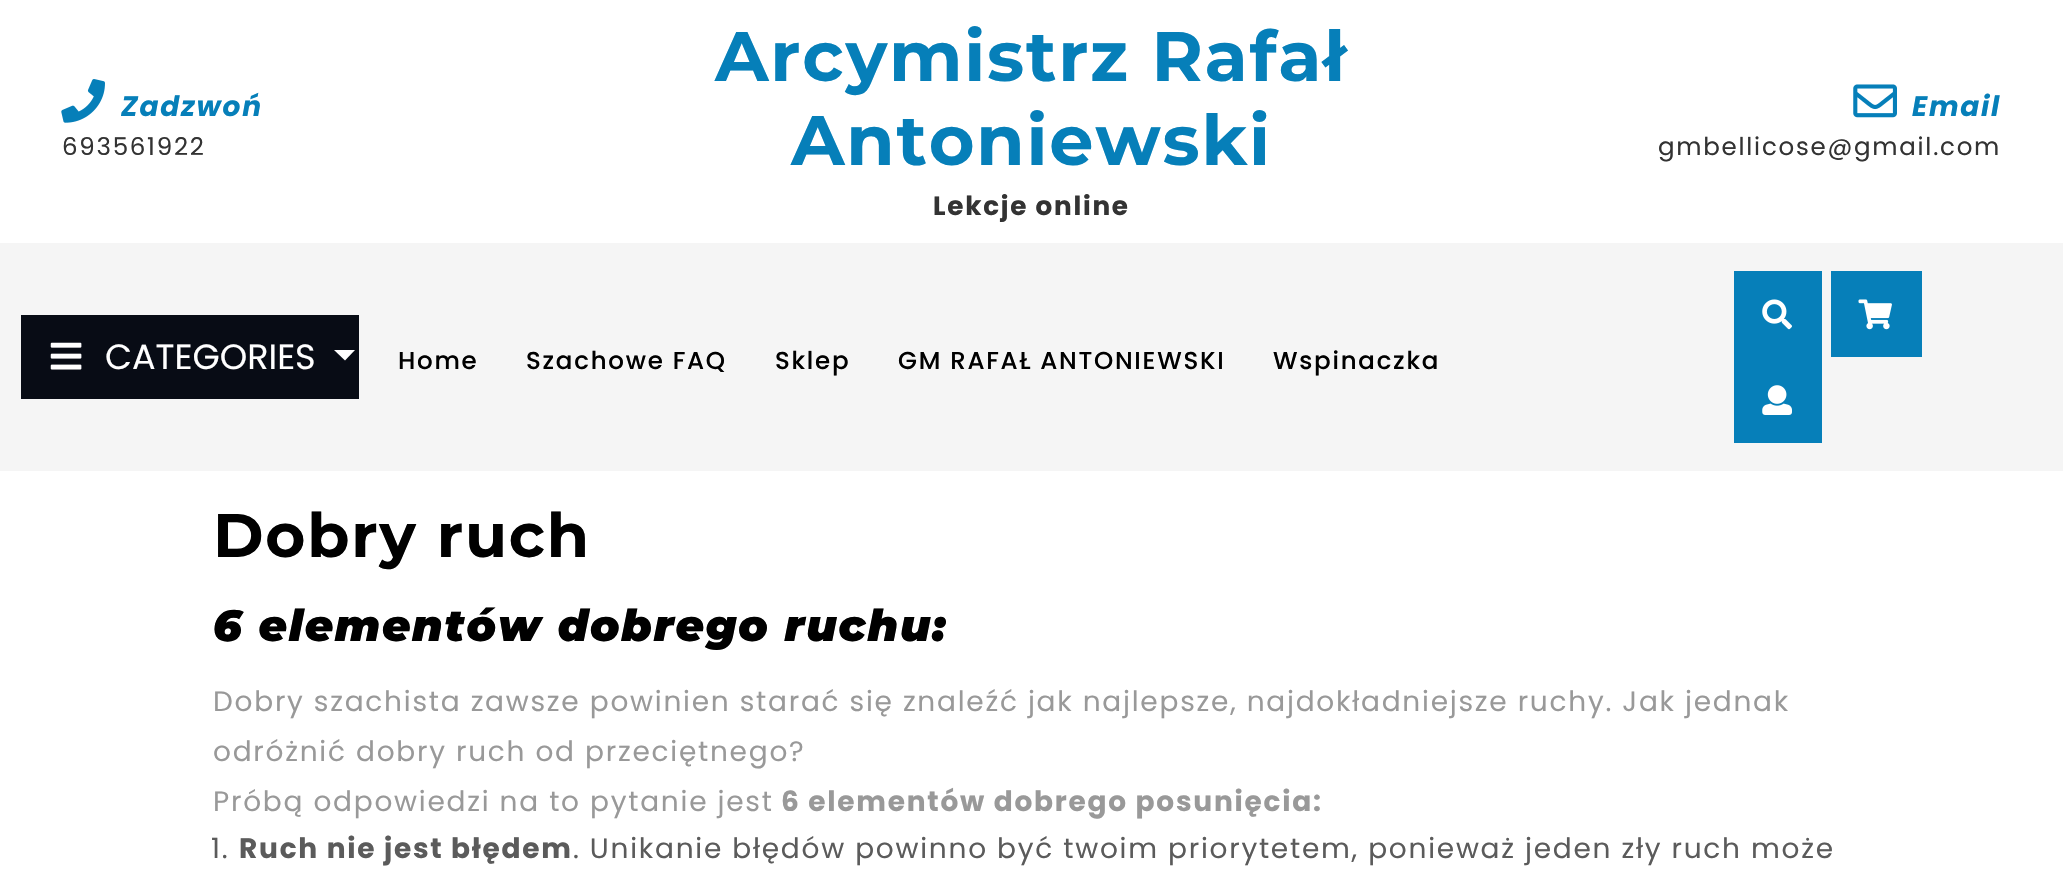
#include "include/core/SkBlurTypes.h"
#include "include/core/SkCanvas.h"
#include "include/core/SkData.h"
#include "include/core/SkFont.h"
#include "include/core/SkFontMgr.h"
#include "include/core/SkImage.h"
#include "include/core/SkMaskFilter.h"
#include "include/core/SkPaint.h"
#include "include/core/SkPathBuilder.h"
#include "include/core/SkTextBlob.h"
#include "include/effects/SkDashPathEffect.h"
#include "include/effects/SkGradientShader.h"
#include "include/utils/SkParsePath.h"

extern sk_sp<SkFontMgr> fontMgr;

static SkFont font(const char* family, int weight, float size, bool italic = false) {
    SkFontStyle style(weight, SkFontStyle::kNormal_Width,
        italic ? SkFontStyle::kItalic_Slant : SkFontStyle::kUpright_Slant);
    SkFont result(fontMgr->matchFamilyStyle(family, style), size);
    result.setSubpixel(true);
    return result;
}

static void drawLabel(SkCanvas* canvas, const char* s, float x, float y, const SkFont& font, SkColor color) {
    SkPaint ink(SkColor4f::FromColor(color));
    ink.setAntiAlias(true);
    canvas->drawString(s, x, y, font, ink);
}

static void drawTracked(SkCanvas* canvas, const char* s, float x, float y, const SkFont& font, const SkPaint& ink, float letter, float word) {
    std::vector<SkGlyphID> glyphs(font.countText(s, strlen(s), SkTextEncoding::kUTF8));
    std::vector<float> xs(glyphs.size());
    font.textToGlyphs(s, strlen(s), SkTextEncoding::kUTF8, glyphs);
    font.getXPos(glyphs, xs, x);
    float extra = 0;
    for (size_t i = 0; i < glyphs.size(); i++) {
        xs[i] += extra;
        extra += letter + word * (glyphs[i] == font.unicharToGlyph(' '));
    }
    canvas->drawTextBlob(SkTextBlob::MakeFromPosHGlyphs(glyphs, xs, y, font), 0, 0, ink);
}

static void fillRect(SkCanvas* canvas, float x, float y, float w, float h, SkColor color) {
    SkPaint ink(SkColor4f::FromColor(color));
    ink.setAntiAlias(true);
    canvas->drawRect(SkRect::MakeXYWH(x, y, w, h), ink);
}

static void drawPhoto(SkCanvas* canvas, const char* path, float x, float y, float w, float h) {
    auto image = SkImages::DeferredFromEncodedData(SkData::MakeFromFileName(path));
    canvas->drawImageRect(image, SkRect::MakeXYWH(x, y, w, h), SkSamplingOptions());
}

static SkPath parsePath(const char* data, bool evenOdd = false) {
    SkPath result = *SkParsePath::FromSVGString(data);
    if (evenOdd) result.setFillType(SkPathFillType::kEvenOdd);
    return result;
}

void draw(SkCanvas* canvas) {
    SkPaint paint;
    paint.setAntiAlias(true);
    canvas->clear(0xFFFFFFFF);
    drawPhoto(canvas, "assets/img1.png", 61, 79, 44, 44);
    SkFont font1 = font("Poppins", 700, 28, true);
    paint.setColor(0xFF067FB9);
    drawTracked(canvas, "Zadzwoń", 121, 116, font1, paint, 1.75f, 0);
    SkFont font2 = font("Poppins", 400, 24.5f);
    paint.setColor(0xFF333333);
    drawTracked(canvas, "693561922", 62, 155, font2, paint, 1.75f, 0);
    SkFont font3 = font("Montserrat", 700, 70);
    paint.setColor(0xFF067FB9);
    drawTracked(canvas, "Arcymistrz Rafał", 715, 81, font3, paint, 1.75f, 0);
    drawTracked(canvas, "Antoniewski", 791, 165, font3, paint, 1.75f, 0);
    SkFont font4 = font("Poppins", 700, 26.25f);
    paint.setColor(0xFF333333);
    drawTracked(canvas, "Lekcje online", 933, 215, font4, paint, 1.75f, 0);
    drawPhoto(canvas, "assets/img2.png", 1853, 84, 44, 34);
    paint.setColor(0xFF067FB9);
    drawTracked(canvas, "Email", 1912, 116, font1, paint, 1.75f, 0);
    paint.setColor(0xFF333333);
    drawTracked(canvas, "gmbellicose@gmail.com", 1658, 155, font2, paint, 1.75f, 0);
    fillRect(canvas, 0, 243, 2063, 228, 0xFFF5F5F5);
    fillRect(canvas, 21, 315, 338, 84, 0xFF080C15);
    drawPhoto(canvas, "assets/img3.png", 50, 342, 32, 28);
    SkFont font5 = font("Poppins", 400, 35);
    drawLabel(canvas, "CATEGORIES", 105, 369, font5, 0xFFFFFFFF);
    paint.setColor(0xFFFFFFFF);
    canvas->drawPath(parsePath("M334 350H355L345 360.5Z"), paint);
    SkFont font6 = font("Poppins", 500, 24.5f);
    paint.setColor(0xFF000000);
    drawTracked(canvas, "Home", 398, 369, font6, paint, 1.75f, 0);
    drawTracked(canvas, "Szachowe FAQ", 526, 369, font6, paint, 1.75f, 0);
    drawTracked(canvas, "Sklep", 775, 369, font6, paint, 1.75f, 0);
    drawTracked(canvas, "GM RAFAŁ ANTONIEWSKI", 898, 369, font6, paint, 1.75f, 0);
    drawTracked(canvas, "Wspinaczka", 1273, 369, font6, paint, 1.75f, 0);
    fillRect(canvas, 1734, 271, 88, 172, 0xFF067FB9);
    drawPhoto(canvas, "assets/img4.png", 1762, 299, 30, 31);
    fillRect(canvas, 1831, 271, 91, 86, 0xFF067FB9);
    drawPhoto(canvas, "assets/img5.png", 1858, 299, 34, 31);
    drawPhoto(canvas, "assets/img6.png", 1762, 385, 30, 30);
    SkFont font7 = font("Montserrat", 700, 61.25f);
    drawTracked(canvas, "Dobry ruch", 213, 557, font7, paint, 1.75f, 0);
    SkFont font8 = font("Montserrat", 900, 43.75f, true);
    drawTracked(canvas, "6 elementów dobrego ruchu:", 213, 641, font8, paint, 1.75f, 0);
    SkFont font9 = font("Poppins", 400, 28);
    paint.setColor(0xFF999999);
    drawTracked(canvas, "Dobry szachista zawsze powinien starać się znaleźć jak najlepsze, najdokładniejsze ruchy. Jak jednak", 213, 711, font9, paint, 1.75f, 0);
    drawTracked(canvas, "odróżnić dobry ruch od przeciętnego?", 213, 761, font9, paint, 1.75f, 0);
    drawTracked(canvas, "Próbą odpowiedzi na to pytanie jest", 213, 811, font9, paint, 1.75f, 0);
    SkFont font10 = font("Poppins", 700, 28);
    drawTracked(canvas, "6 elementów dobrego posunięcia:", 781, 811, font10, paint, 1.75f, 0);
    paint.setColor(0xFF5B5B5B);
    drawTracked(canvas, "1.", 211, 858, font9, paint, 1.75f, 0);
    drawTracked(canvas, "Ruch nie jest błędem", 239, 858, font10, paint, 1.75f, 0);
    drawTracked(canvas, ". Unikanie błędów powinno być twoim priorytetem, ponieważ jeden zły ruch może", 573, 858, font9, paint, 1.75f, 0);
}
